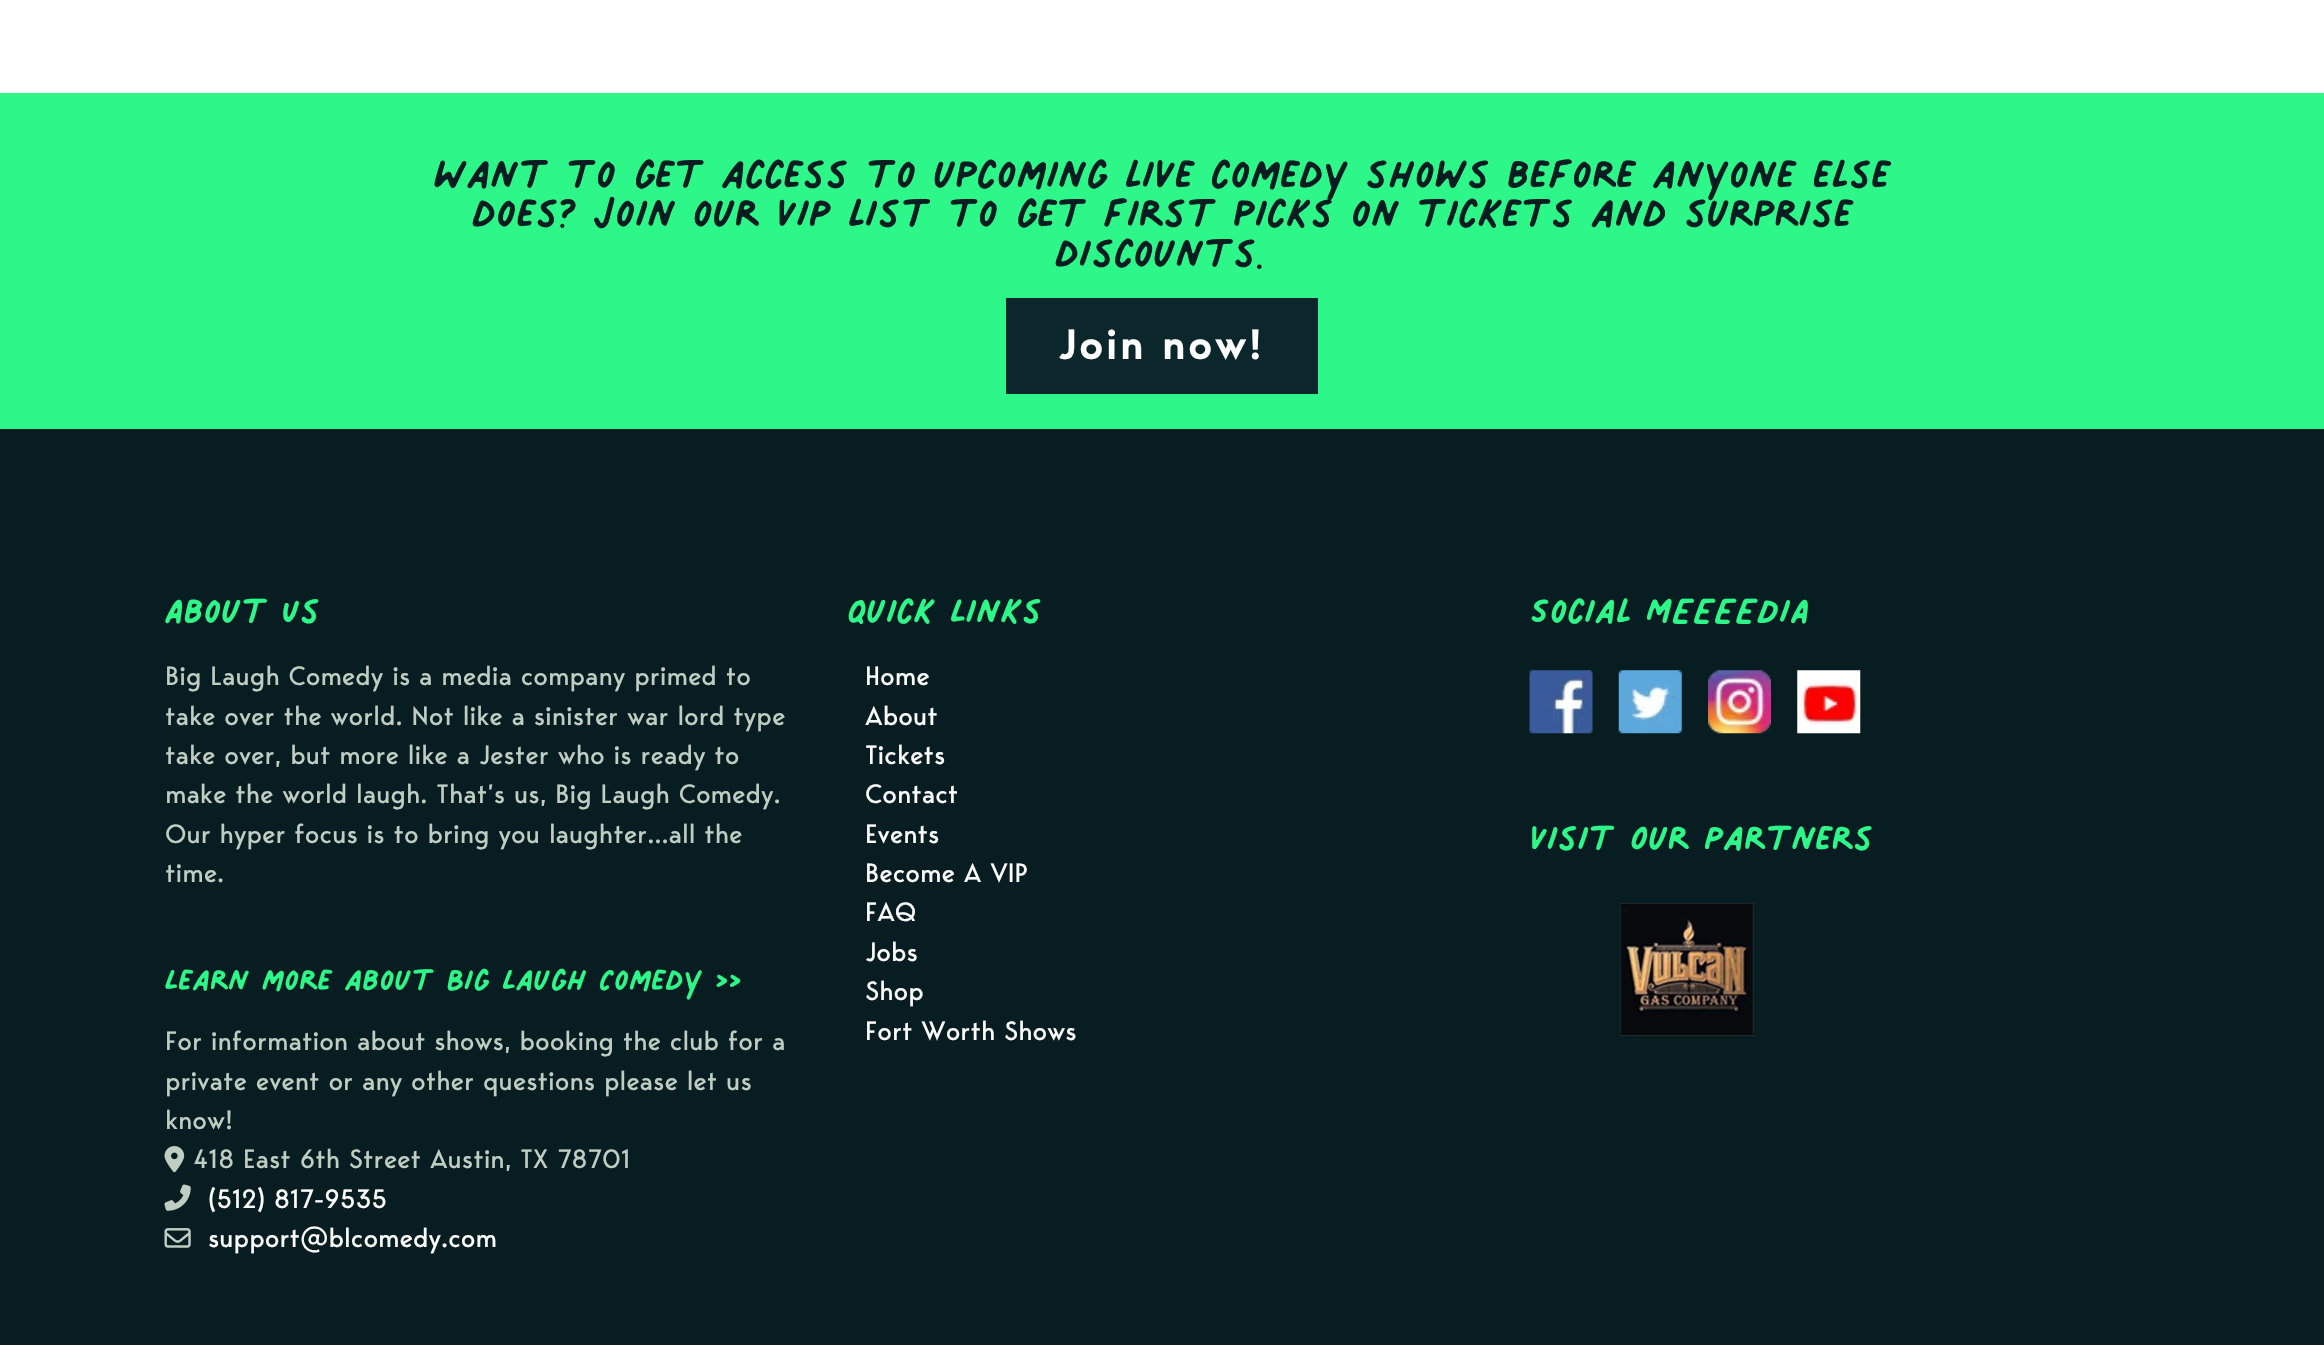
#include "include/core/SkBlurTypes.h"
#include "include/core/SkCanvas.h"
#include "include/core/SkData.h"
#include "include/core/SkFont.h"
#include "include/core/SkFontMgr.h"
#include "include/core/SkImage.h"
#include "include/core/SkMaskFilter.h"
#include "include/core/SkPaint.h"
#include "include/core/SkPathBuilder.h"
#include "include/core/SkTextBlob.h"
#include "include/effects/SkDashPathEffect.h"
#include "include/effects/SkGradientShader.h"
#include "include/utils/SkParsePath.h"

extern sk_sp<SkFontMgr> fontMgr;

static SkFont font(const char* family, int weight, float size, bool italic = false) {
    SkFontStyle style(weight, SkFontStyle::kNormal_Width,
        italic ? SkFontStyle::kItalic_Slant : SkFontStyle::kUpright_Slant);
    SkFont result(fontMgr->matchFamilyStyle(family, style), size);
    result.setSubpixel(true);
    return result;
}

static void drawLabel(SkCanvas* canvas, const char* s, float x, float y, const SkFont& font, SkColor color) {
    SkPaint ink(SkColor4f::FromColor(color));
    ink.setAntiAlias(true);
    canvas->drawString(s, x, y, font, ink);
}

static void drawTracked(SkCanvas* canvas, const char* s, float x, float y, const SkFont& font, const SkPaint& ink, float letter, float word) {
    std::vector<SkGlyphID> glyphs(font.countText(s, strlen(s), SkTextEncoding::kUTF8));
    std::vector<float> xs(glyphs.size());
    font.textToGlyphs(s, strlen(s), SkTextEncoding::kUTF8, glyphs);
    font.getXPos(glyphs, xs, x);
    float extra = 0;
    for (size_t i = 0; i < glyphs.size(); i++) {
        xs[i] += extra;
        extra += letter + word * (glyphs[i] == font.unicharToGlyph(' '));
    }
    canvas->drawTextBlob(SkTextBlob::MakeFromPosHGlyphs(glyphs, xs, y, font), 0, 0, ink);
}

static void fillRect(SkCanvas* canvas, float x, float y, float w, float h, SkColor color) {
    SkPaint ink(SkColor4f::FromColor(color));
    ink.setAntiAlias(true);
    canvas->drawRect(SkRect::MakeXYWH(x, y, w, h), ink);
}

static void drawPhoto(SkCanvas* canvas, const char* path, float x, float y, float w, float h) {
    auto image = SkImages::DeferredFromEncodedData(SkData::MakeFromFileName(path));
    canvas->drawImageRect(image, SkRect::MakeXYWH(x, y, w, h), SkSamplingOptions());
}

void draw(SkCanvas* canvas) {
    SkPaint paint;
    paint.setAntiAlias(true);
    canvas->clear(0xFFFFFFFF);
    fillRect(canvas, 0, 93, 2324, 336, 0xFF2DF788);
    SkFont font1 = font("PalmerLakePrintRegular", 400, 84);
    drawLabel(canvas, "Want to get access to upcoming live comedy shows before anyone else", 434, 189, font1, 0xFF071D21);
    drawLabel(canvas, "does? Join our VIP list to get first picks on tickets and surprise", 472, 228, font1, 0xFF071D21);
    drawLabel(canvas, "discounts.", 1055, 268, font1, 0xFF071D21);
    fillRect(canvas, 1006, 298, 312, 96, 0xFF0B272C);
    SkFont font2 = font("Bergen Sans", 600, 42);
    paint.setColor(0xFFFFFFFF);
    drawTracked(canvas, "Join now!", 1058, 359, font2, paint, 3.25f, 0);
    fillRect(canvas, 0, 429, 2324, 916, 0xFF071D21);
    SkFont font3 = font("PalmerLakePrintRegular", 400, 73.5f);
    drawLabel(canvas, "About Us", 165, 624, font3, 0xFF2DF788);
    SkFont font4 = font("Bergen Sans", 400, 26.25f);
    drawLabel(canvas, "Big Laugh Comedy is a media company primed to", 165, 685, font4, 0xFFC0CDC2);
    drawLabel(canvas, "take over the world. Not like a sinister war lord type", 165, 725, font4, 0xFFC0CDC2);
    drawLabel(canvas, "take over, but more like a Jester who is ready to", 165, 764, font4, 0xFFC0CDC2);
    drawLabel(canvas, "make the world laugh. That’s us, Big Laugh Comedy.", 165, 803, font4, 0xFFC0CDC2);
    drawLabel(canvas, "Our hyper focus is to bring you laughter…all the", 165, 843, font4, 0xFFC0CDC2);
    drawLabel(canvas, "time.", 165, 882, font4, 0xFFC0CDC2);
    SkFont font5 = font("PalmerLakePrintRegular", 400, 63);
    drawLabel(canvas, "Learn more about Big Laugh Comedy >>", 165, 991, font5, 0xFF2DF788);
    drawLabel(canvas, "For information about shows, booking the club for a", 165, 1050, font4, 0xFFC0CDC2);
    drawLabel(canvas, "private event or any other questions please let us", 165, 1090, font4, 0xFFC0CDC2);
    drawLabel(canvas, "know!", 165, 1129, font4, 0xFFC0CDC2);
    drawPhoto(canvas, "assets/img1.png", 164, 1146, 21, 27);
    drawLabel(canvas, "418 East 6th Street Austin, TX 78701", 193, 1168, font4, 0xFFC0CDC2);
    drawPhoto(canvas, "assets/img2.png", 164, 1184, 27, 27);
    drawLabel(canvas, "(512) 817-9535", 208, 1208, font4, 0xFFFFFFFF);
    drawPhoto(canvas, "assets/img3.png", 164, 1228, 27, 20);
    drawLabel(canvas, "support@blcomedy.com", 208, 1247, font4, 0xFFFFFFFF);
    drawLabel(canvas, "Quick Links", 847, 624, font3, 0xFF2DF788);
    drawLabel(canvas, "Home", 865, 685, font4, 0xFFFFFFFF);
    drawLabel(canvas, "About", 865, 725, font4, 0xFFFFFFFF);
    drawLabel(canvas, "Tickets", 865, 764, font4, 0xFFFFFFFF);
    drawLabel(canvas, "Contact", 865, 803, font4, 0xFFFFFFFF);
    drawLabel(canvas, "Events", 865, 843, font4, 0xFFFFFFFF);
    drawLabel(canvas, "Become A VIP", 865, 882, font4, 0xFFFFFFFF);
    drawLabel(canvas, "FAQ", 865, 921, font4, 0xFFFFFFFF);
    drawLabel(canvas, "Jobs", 865, 961, font4, 0xFFFFFFFF);
    drawLabel(canvas, "Shop", 865, 1000, font4, 0xFFFFFFFF);
    drawLabel(canvas, "Fort Worth Shows", 865, 1040, font4, 0xFFFFFFFF);
    drawLabel(canvas, "Social MEEEEDIA", 1530, 624, font3, 0xFF2DF788);
    drawPhoto(canvas, "assets/img4.png", 1529, 670, 64, 64);
    drawPhoto(canvas, "assets/img5.png", 1618, 670, 64, 64);
    drawPhoto(canvas, "assets/img6.png", 1708, 670, 63, 64);
    drawPhoto(canvas, "assets/img7.png", 1797, 670, 64, 64);
    drawLabel(canvas, "Visit Our Partners", 1530, 851, font3, 0xFF2DF788);
    drawPhoto(canvas, "assets/img8.png", 1620, 903, 134, 133);
}
